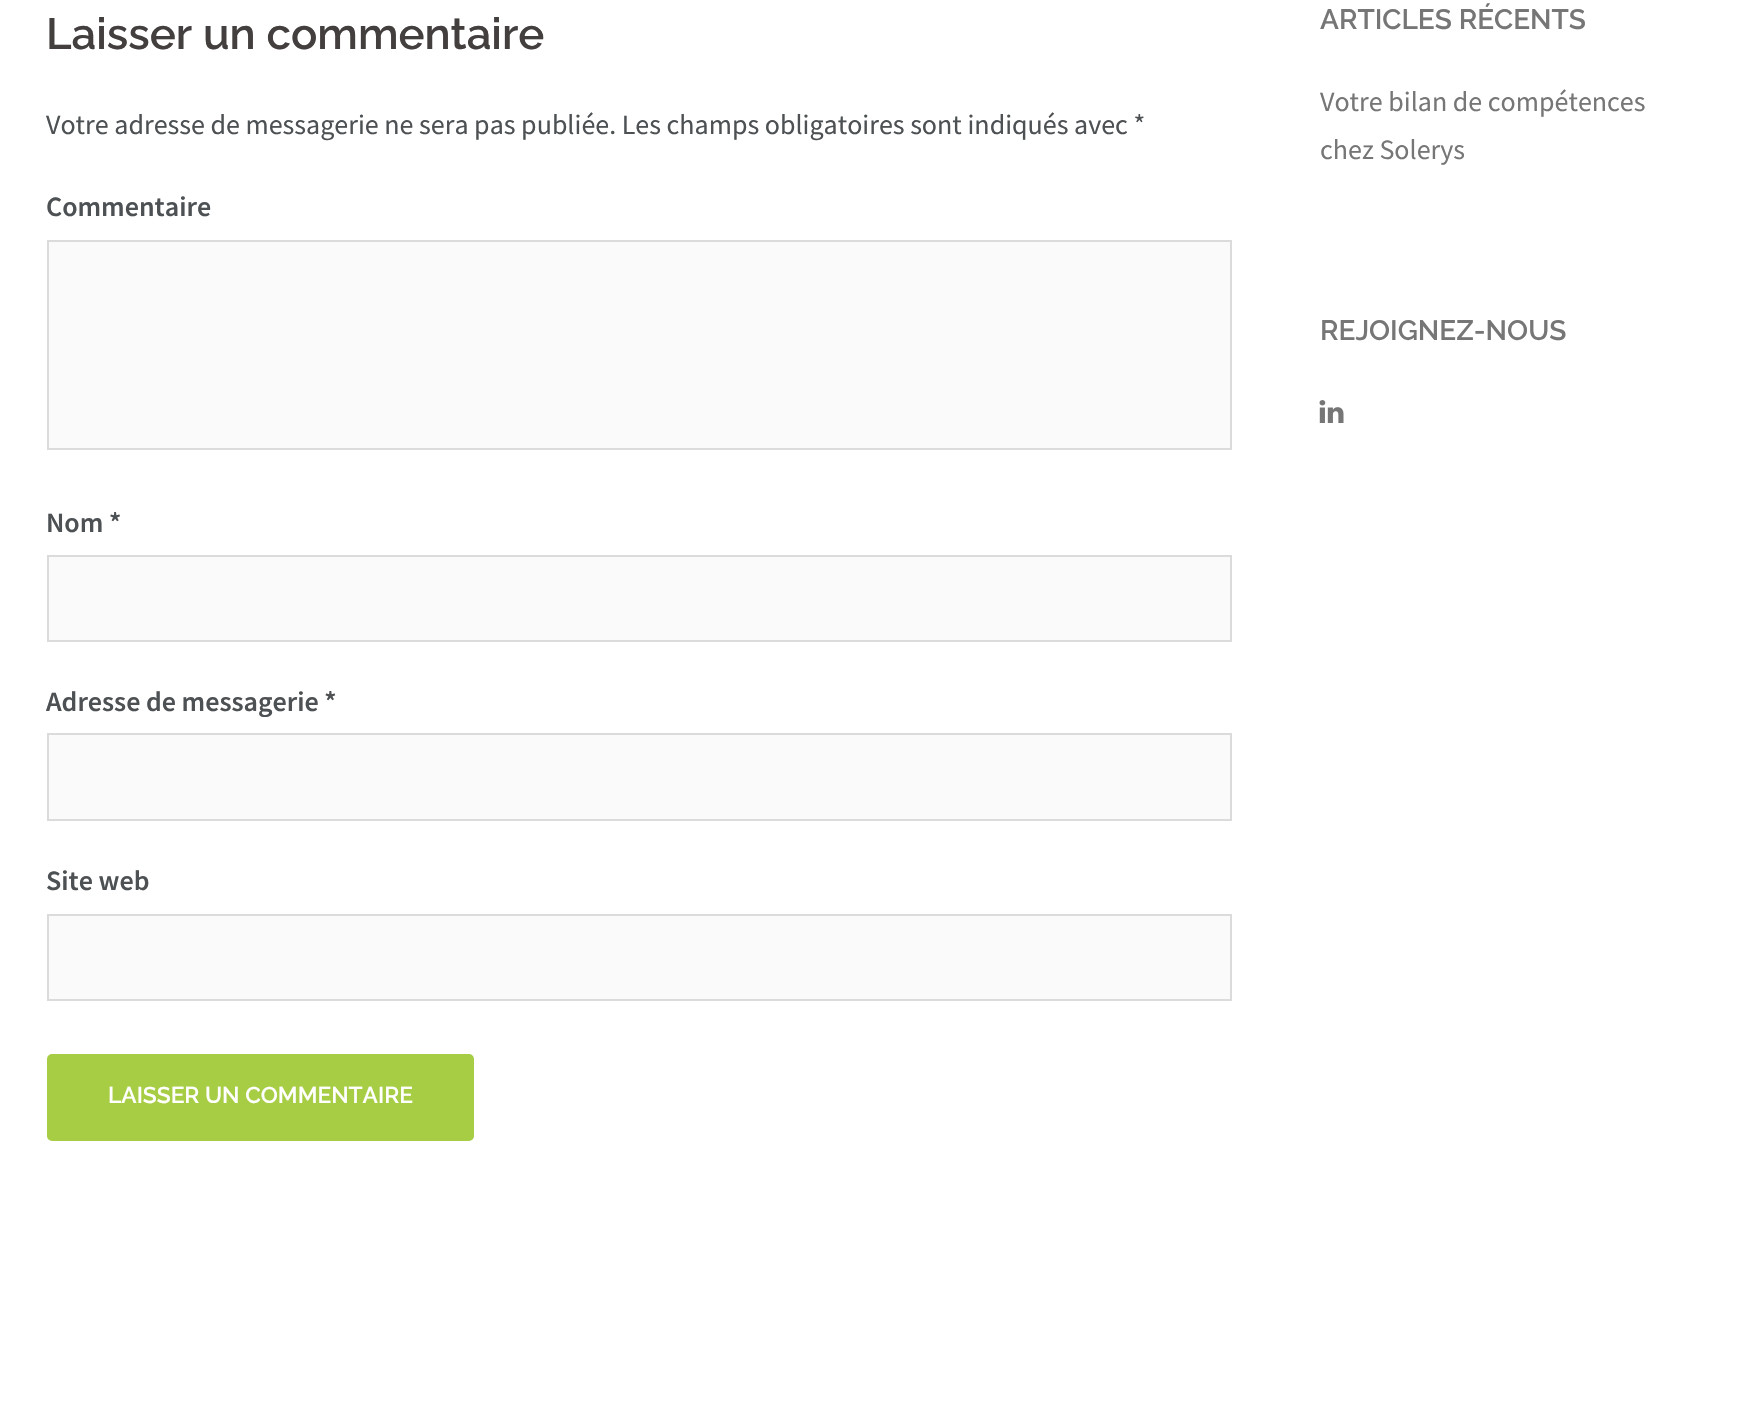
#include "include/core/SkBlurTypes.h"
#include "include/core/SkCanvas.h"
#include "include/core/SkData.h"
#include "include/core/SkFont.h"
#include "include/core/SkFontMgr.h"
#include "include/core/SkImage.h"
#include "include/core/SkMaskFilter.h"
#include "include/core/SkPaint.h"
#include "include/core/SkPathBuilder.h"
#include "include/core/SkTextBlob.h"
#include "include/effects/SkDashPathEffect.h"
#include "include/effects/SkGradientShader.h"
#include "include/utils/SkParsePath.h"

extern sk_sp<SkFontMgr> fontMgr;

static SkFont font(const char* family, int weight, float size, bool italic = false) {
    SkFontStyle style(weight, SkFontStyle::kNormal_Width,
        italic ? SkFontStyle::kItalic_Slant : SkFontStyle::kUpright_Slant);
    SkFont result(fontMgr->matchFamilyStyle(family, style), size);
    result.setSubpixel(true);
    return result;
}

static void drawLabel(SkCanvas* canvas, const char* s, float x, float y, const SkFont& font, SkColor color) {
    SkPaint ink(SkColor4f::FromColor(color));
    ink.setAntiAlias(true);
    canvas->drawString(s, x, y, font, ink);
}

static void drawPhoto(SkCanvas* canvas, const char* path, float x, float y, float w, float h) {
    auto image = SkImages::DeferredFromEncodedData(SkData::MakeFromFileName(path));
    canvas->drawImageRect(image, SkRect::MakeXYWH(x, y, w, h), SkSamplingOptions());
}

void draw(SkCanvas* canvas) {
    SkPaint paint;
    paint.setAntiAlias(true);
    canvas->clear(0xFFFFFFFF);
    SkFont font1 = font("Raleway", 600, 43.75f);
    drawLabel(canvas, "Laisser un commentaire", 46, 49, font1, 0xFF443F3F);
    SkFont font2 = font("Source Sans Pro", 400, 28);
    drawLabel(canvas, "Votre adresse de messagerie ne sera pas publiée. Les champs obligatoires sont indiqués avec *", 46, 134, font2, 0xFF4D5153);
    SkFont font3 = font("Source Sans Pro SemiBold", 600, 28);
    drawLabel(canvas, "Commentaire", 46, 216, font3, 0xFF4D5153);
    paint.setColor(0xFFFAFAFA);
    canvas->drawRect(SkRect::MakeXYWH(48, 241, 1183, 208), paint);
    paint.setStroke(true);
    paint.setStrokeWidth(2);
    paint.setColor(0xFFDBDBDB);
    canvas->drawRect(SkRect::MakeXYWH(48, 241, 1183, 208), paint);
    drawLabel(canvas, "Nom *", 46, 532, font3, 0xFF4D5153);
    paint.setStroke(false);
    paint.setColor(0xFFFAFAFA);
    canvas->drawRect(SkRect::MakeXYWH(48, 556, 1183, 85), paint);
    paint.setStroke(true);
    paint.setColor(0xFFDBDBDB);
    canvas->drawRect(SkRect::MakeXYWH(48, 556, 1183, 85), paint);
    drawLabel(canvas, "Adresse de messagerie *", 46, 711, font3, 0xFF4D5153);
    paint.setStroke(false);
    paint.setColor(0xFFFAFAFA);
    canvas->drawRect(SkRect::MakeXYWH(48, 734, 1183, 86), paint);
    paint.setStroke(true);
    paint.setColor(0xFFDBDBDB);
    canvas->drawRect(SkRect::MakeXYWH(48, 734, 1183, 86), paint);
    drawLabel(canvas, "Site web", 46, 890, font3, 0xFF4D5153);
    paint.setStroke(false);
    paint.setColor(0xFFFAFAFA);
    canvas->drawRect(SkRect::MakeXYWH(48, 915, 1183, 85), paint);
    paint.setStroke(true);
    paint.setColor(0xFFDBDBDB);
    canvas->drawRect(SkRect::MakeXYWH(48, 915, 1183, 85), paint);
    paint.setStroke(false);
    paint.setColor(0xFFA7CD45);
    canvas->drawRoundRect(SkRect::MakeXYWH(48, 1055, 425, 85), 4, 4, paint);
    paint.setStroke(true);
    canvas->drawRoundRect(SkRect::MakeXYWH(48, 1055, 425, 85), 4, 4, paint);
    SkFont font4 = font("Raleway", 600, 22.75f);
    drawLabel(canvas, "LAISSER UN COMMENTAIRE", 108, 1103, font4, 0xFFFFFFFF);
    SkFont font5 = font("Raleway", 600, 28);
    drawLabel(canvas, "ARTICLES RÉCENTS", 1320, 29, font5, 0xFF767676);
    drawLabel(canvas, "Votre bilan de compétences", 1320, 111, font2, 0xFF767676);
    drawLabel(canvas, "chez Solerys", 1320, 159, font2, 0xFF767676);
    drawLabel(canvas, "REJOIGNEZ-NOUS", 1320, 340, font5, 0xFF767676);
    drawPhoto(canvas, "assets/img1.png", 1319, 400, 25, 23);
}
